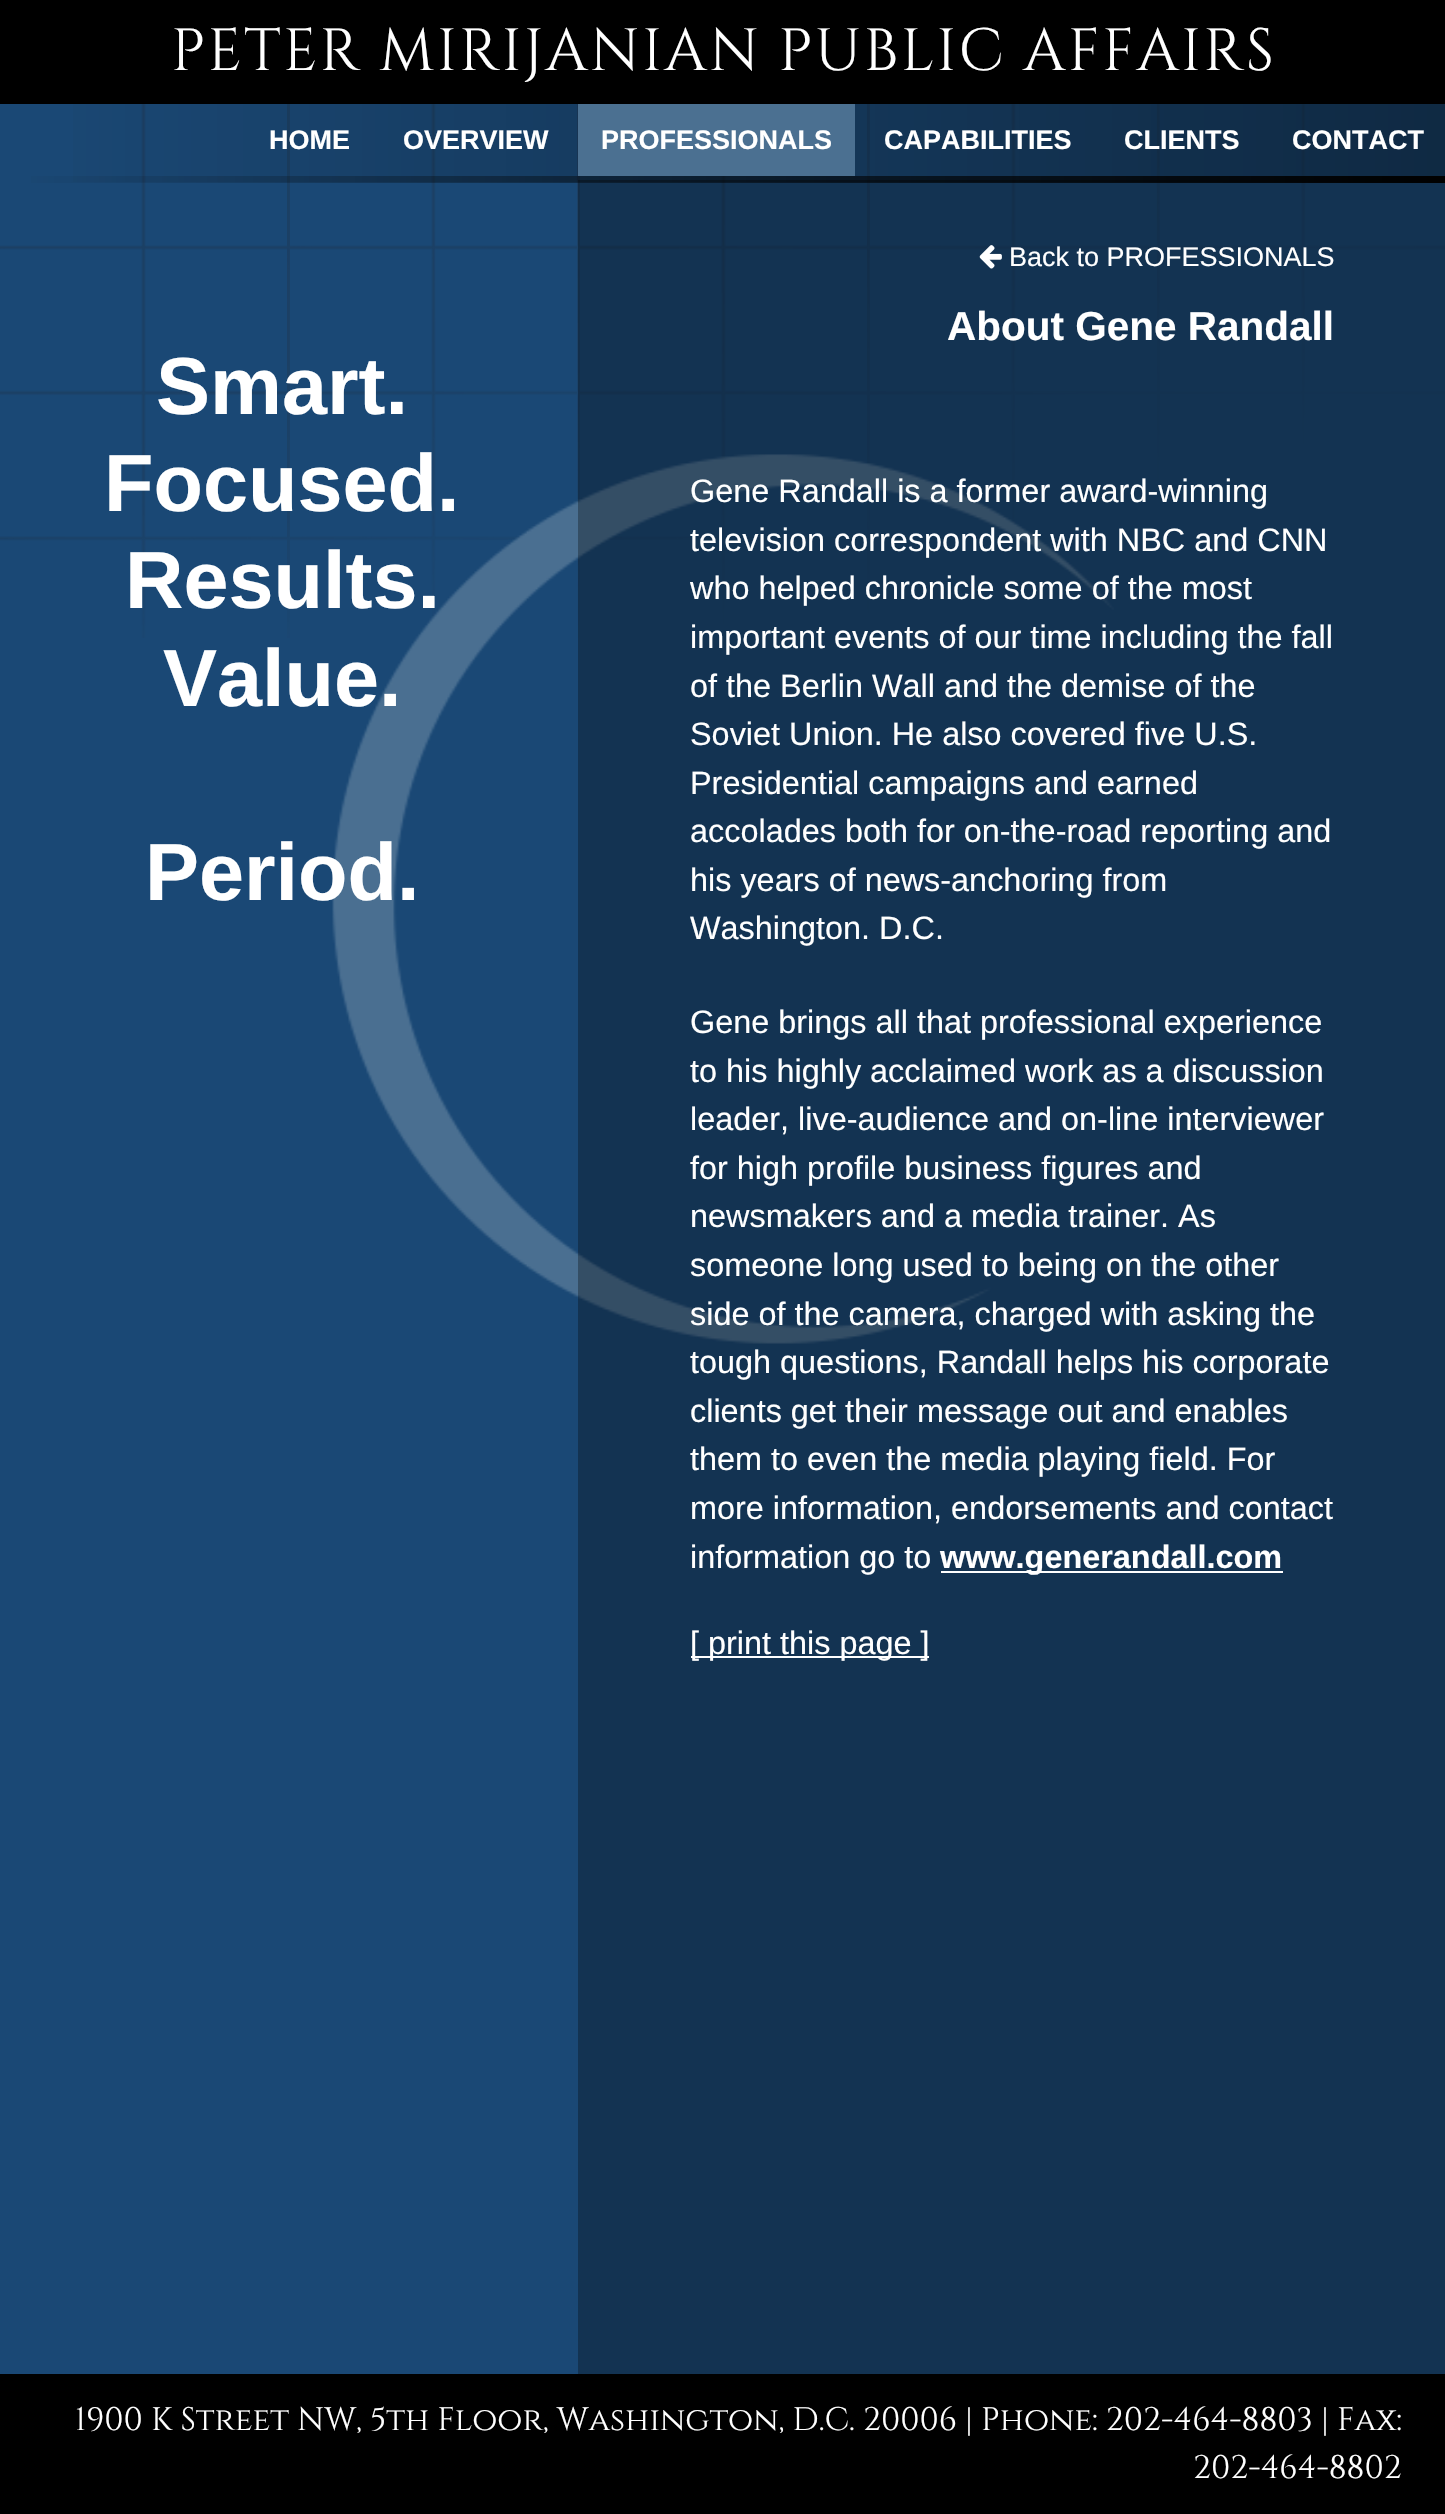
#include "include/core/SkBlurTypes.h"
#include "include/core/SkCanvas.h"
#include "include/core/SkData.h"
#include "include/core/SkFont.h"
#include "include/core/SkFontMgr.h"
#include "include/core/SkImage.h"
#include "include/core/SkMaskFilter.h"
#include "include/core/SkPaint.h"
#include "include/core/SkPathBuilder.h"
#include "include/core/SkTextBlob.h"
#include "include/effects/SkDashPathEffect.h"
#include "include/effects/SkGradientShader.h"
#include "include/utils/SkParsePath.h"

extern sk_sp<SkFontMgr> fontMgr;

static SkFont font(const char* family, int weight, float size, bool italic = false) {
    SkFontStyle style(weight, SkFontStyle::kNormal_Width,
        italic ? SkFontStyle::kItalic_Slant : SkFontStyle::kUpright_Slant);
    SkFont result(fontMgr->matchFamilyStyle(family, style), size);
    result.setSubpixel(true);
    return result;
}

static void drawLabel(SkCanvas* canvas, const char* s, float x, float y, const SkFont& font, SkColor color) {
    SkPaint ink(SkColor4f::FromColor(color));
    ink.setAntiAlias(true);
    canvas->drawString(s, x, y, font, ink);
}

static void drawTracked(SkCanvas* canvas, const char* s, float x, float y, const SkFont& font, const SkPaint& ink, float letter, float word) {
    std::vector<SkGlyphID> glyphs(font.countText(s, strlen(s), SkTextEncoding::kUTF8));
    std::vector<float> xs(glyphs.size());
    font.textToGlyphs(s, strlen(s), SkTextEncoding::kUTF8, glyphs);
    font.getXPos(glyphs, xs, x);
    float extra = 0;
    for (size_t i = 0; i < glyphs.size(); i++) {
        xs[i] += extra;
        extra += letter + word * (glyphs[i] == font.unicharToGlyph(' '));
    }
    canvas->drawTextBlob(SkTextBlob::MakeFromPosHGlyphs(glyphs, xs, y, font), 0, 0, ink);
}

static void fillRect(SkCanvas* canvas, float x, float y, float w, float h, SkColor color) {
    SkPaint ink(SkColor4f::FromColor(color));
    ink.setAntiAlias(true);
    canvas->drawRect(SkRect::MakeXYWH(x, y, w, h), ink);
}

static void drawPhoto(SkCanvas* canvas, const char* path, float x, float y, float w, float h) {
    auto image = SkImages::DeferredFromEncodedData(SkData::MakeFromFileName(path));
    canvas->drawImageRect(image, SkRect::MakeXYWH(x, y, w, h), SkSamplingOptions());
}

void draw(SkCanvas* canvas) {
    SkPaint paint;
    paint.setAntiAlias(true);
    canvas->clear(0xFF1A4875);
    drawPhoto(canvas, "assets/img1.png", 0, 104, 1445, 534);
    {
        const SkColor colors[] = {0x00000000, 0x6E000000};
        const float stops[] = {0, 1};
        const SkPoint ends[] = {{0, 91}, {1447, 91}};
        paint.setShader(SkGradientShader::MakeLinear(ends, colors, stops, 2, SkTileMode::kClamp));
        paint.setAlpha(255);
    }
    canvas->drawRect(SkRect::MakeXYWH(73, 104, 1372, 78), paint);
    fillRect(canvas, 0, 0, 1445, 104, 0xFF000000);
    SkFont font1 = font("Cinzel", 400, 59.4f);
    paint.setShader(nullptr);
    paint.setColor(0xFFFFFFFF);
    drawTracked(canvas, "PETER MIRIJANIAN PUBLIC AFFAIRS", 171, 70, font1, paint, 2.25f, 0);
    SkFont font2 = font("Liberation Sans", 700, 27);
    drawLabel(canvas, "HOME", 269, 149, font2, 0xFFFFFFFF);
    drawLabel(canvas, "OVERVIEW", 403, 149, font2, 0xFFFFFFFF);
    fillRect(canvas, 578, 104, 277, 72, 0xFF4B7091);
    drawLabel(canvas, "PROFESSIONALS", 601, 149, font2, 0xFFFFFFFF);
    drawLabel(canvas, "CAPABILITIES", 884, 149, font2, 0xFFFFFFFF);
    drawLabel(canvas, "CLIENTS", 1124, 149, font2, 0xFFFFFFFF);
    drawLabel(canvas, "CONTACT", 1292, 149, font2, 0xFFFFFFFF);
    {
        const SkColor colors[] = {0x00000000, 0xFF000000};
        const float stops[] = {0, 1};
        const SkPoint ends[] = {{0, 179}, {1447, 179}};
        paint.setShader(SkGradientShader::MakeLinear(ends, colors, stops, 2, SkTileMode::kClamp));
        paint.setAlpha(255);
    }
    canvas->drawRect(SkRect::MakeXYWH(31, 176, 1414, 7), paint);
    SkFont font3 = font("Liberation Sans", 700, 81);
    drawLabel(canvas, "Smart.", 156, 414, font3, 0xFFFFFFFF);
    drawPhoto(canvas, "assets/img3.png", 332, 454, 782, 890);
    drawLabel(canvas, "Focused.", 104, 511, font3, 0xFFFFFFFF);
    drawLabel(canvas, "Results.", 125, 608, font3, 0xFFFFFFFF);
    drawLabel(canvas, "Value.", 163, 706, font3, 0xFFFFFFFF);
    drawLabel(canvas, "Period.", 145, 900, font3, 0xFFFFFFFF);
    fillRect(canvas, 578, 180, 867, 2194, 0x4D000000);
    drawPhoto(canvas, "assets/img2.png", 979, 245, 23, 24);
    SkFont font4 = font("Liberation Sans", 400, 27);
    drawLabel(canvas, "Back to PROFESSIONALS", 1009, 266, font4, 0xFFFFFFFF);
    SkFont font5 = font("Liberation Sans", 700, 40.5f);
    drawLabel(canvas, "About Gene Randall", 947, 340, font5, 0xFFFFFFFF);
    SkFont font6 = font("Liberation Sans", 400, 32.4f);
    drawLabel(canvas, "Gene Randall is a former award-winning", 690, 502, font6, 0xFFFFFFFF);
    drawLabel(canvas, "television correspondent with NBC and CNN", 690, 551, font6, 0xFFFFFFFF);
    drawLabel(canvas, "who helped chronicle some of the most", 690, 599, font6, 0xFFFFFFFF);
    drawLabel(canvas, "important events of our time including the fall", 690, 648, font6, 0xFFFFFFFF);
    drawLabel(canvas, "of the Berlin Wall and the demise of the", 690, 697, font6, 0xFFFFFFFF);
    drawLabel(canvas, "Soviet Union. He also covered five U.S.", 690, 745, font6, 0xFFFFFFFF);
    drawLabel(canvas, "Presidential campaigns and earned", 690, 794, font6, 0xFFFFFFFF);
    drawLabel(canvas, "accolades both for on-the-road reporting and", 690, 842, font6, 0xFFFFFFFF);
    drawLabel(canvas, "his years of news-anchoring from", 690, 891, font6, 0xFFFFFFFF);
    drawLabel(canvas, "Washington. D.C.", 690, 939, font6, 0xFFFFFFFF);
    drawLabel(canvas, "Gene brings all that professional experience", 690, 1033, font6, 0xFFFFFFFF);
    drawLabel(canvas, "to his highly acclaimed work as a discussion", 690, 1082, font6, 0xFFFFFFFF);
    drawLabel(canvas, "leader, live-audience and on-line interviewer", 690, 1130, font6, 0xFFFFFFFF);
    drawLabel(canvas, "for high profile business figures and", 690, 1179, font6, 0xFFFFFFFF);
    drawLabel(canvas, "newsmakers and a media trainer. As", 690, 1227, font6, 0xFFFFFFFF);
    drawLabel(canvas, "someone long used to being on the other", 690, 1276, font6, 0xFFFFFFFF);
    drawLabel(canvas, "side of the camera, charged with asking the", 690, 1325, font6, 0xFFFFFFFF);
    drawLabel(canvas, "tough questions, Randall helps his corporate", 690, 1373, font6, 0xFFFFFFFF);
    drawLabel(canvas, "clients get their message out and enables", 690, 1422, font6, 0xFFFFFFFF);
    drawLabel(canvas, "them to even the media playing field. For", 690, 1470, font6, 0xFFFFFFFF);
    drawLabel(canvas, "more information, endorsements and contact", 690, 1519, font6, 0xFFFFFFFF);
    drawLabel(canvas, "information go to", 690, 1568, font6, 0xFFFFFFFF);
    fillRect(canvas, 941, 1571, 342, 2, 0xFFFFFFFF);
    SkFont font7 = font("Liberation Sans", 700, 32.4f);
    drawLabel(canvas, "www.generandall.com", 940, 1568, font7, 0xFFFFFFFF);
    fillRect(canvas, 691, 1656, 238, 2, 0xFFFFFFFF);
    drawLabel(canvas, "[ print this page ]", 690, 1654, font6, 0xFFFFFFFF);
    fillRect(canvas, 0, 2374, 1445, 140, 0xFF000000);
    SkFont font8 = font("Cinzel", 400, 32.4f);
    drawLabel(canvas, "1900 K Street NW, 5th Floor, Washington, D.C. 20006", 75, 2430, font8, 0xFFFFFFFF);
    drawLabel(canvas, "| Phone: 202-464-8803 | Fax:", 965, 2430, font8, 0xFFFFFFFF);
    drawLabel(canvas, "202-464-8802", 1193, 2478, font8, 0xFFFFFFFF);
}
